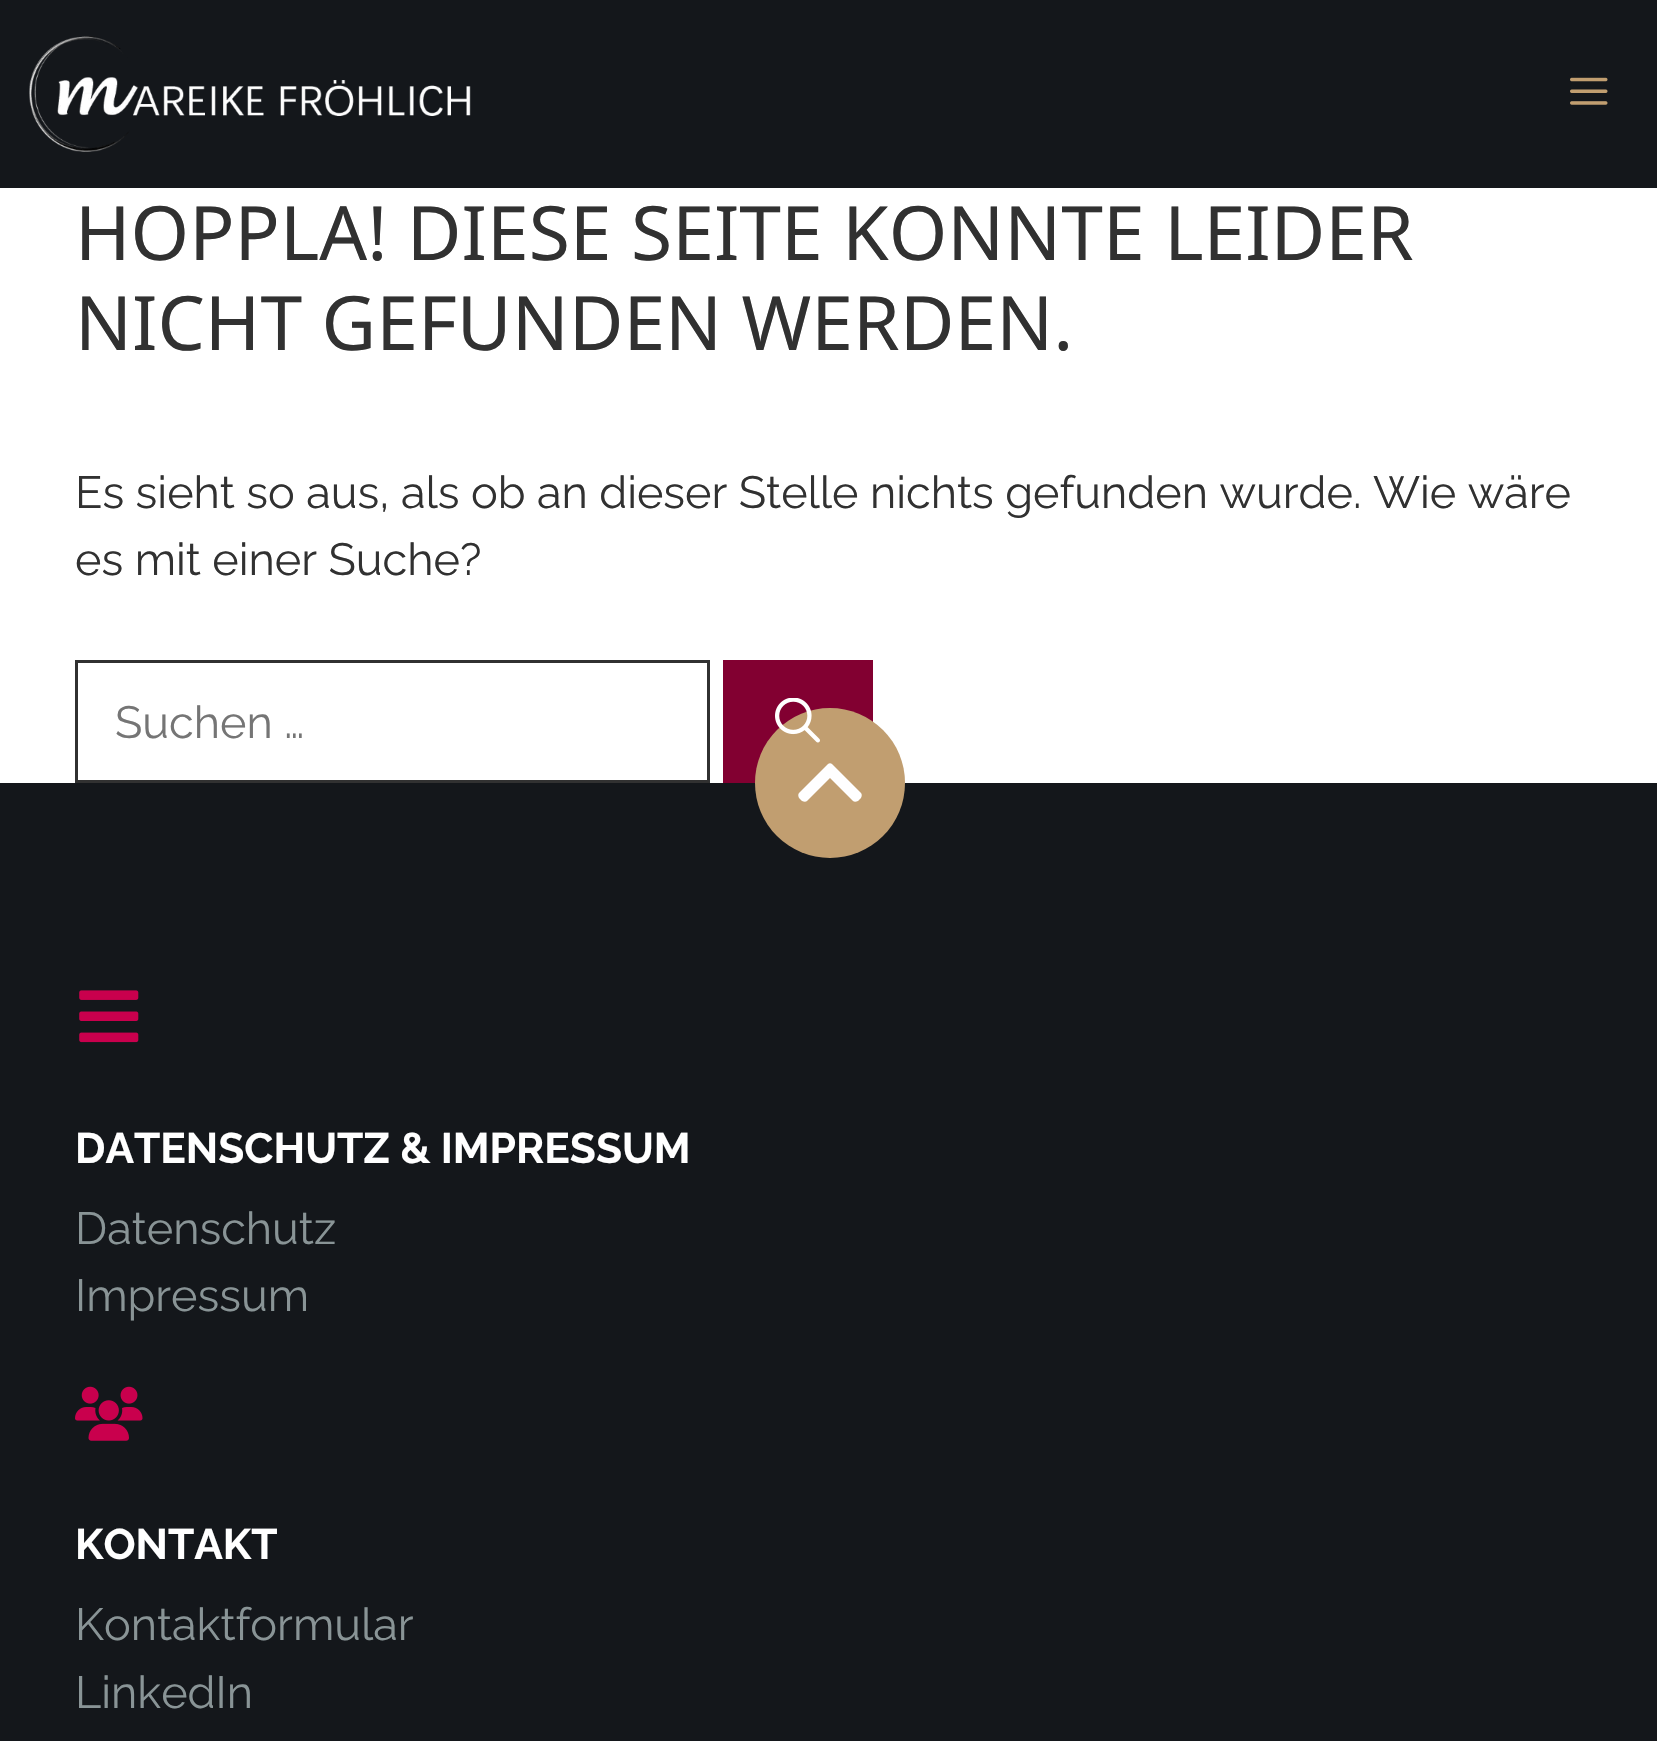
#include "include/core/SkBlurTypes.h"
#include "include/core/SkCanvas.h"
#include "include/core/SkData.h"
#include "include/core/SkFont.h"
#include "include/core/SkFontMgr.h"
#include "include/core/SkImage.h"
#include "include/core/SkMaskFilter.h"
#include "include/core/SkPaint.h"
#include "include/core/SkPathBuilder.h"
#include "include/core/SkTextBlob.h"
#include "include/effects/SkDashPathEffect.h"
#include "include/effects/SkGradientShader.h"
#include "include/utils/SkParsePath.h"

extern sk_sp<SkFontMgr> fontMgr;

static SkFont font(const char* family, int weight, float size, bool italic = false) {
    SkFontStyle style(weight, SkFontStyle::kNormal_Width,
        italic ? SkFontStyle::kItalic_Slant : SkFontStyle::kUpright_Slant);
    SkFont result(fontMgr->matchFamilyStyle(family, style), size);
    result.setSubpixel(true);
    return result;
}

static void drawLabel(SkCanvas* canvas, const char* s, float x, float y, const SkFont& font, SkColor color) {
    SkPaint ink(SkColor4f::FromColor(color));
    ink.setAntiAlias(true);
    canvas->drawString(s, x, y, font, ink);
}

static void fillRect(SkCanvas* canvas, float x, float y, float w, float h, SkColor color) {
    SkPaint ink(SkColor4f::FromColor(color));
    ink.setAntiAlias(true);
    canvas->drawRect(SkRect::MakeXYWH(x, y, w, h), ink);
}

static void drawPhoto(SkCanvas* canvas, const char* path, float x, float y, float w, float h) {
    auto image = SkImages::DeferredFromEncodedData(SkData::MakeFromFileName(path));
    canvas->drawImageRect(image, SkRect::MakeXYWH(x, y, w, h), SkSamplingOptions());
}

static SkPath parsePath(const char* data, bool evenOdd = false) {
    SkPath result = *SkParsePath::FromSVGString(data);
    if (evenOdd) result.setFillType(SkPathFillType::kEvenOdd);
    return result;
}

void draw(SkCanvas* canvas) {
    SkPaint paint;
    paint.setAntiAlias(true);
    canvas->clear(0xFFFFFFFF);
    fillRect(canvas, 0, 0, 1657, 188, 0xFF14171B);
    drawPhoto(canvas, "assets/img1.png", 29, 36, 442, 116);
    drawPhoto(canvas, "assets/img2.png", 1570, 77, 38, 28);
    SkFont font1 = font("Noto Sans", 400, 75);
    drawLabel(canvas, "HOPPLA! DIESE SEITE KONNTE LEIDER", 75, 260, font1, 0xFF313131);
    drawLabel(canvas, "NICHT GEFUNDEN WERDEN.", 75, 350, font1, 0xFF313131);
    SkFont font2 = font("Raleway", 400, 45);
    drawLabel(canvas, "Es sieht so aus, als ob an dieser Stelle nichts gefunden wurde. Wie wäre", 75, 508, font2, 0xFF313131);
    drawLabel(canvas, "es mit einer Suche?", 75, 575, font2, 0xFF313131);
    paint.setStroke(true);
    paint.setStrokeWidth(3);
    paint.setColor(0xFF313131);
    canvas->drawRect(SkRect::MakeXYWH(76.5f, 661.5f, 632, 120), paint);
    drawLabel(canvas, "Suchen …", 115, 738, font2, 0xFF757575);
    fillRect(canvas, 723, 660, 150, 123, 0xFF820031);
    fillRect(canvas, 0, 783, 1657, 958, 0xFF14171B);
    paint.setStroke(false);
    paint.setColor(0xFFC19E70);
    canvas->drawCircle(830, 783, 75, paint);
    drawPhoto(canvas, "assets/img3.png", 775, 698, 45, 45);
    paint.setColor(0xFFFFFFFF);
    canvas->drawPath(parsePath("M832 764L861 793C862 794 862 796 861 798L858 801C856 802 854 802 853 801L830 778L807 801C806 802 804 802 802 801L799 798C798 796 798 794 799 793L828 764C829 763 831 763 832 764Z"), paint);
    drawPhoto(canvas, "assets/img4.png", 79, 990, 60, 53);
    SkFont font3 = font("Raleway", 700, 42.5f);
    drawLabel(canvas, "DATENSCHUTZ & IMPRESSUM", 75, 1163, font3, 0xFFFFFFFF);
    drawLabel(canvas, "Datenschutz", 75, 1244, font2, 0xFF899496);
    drawLabel(canvas, "Impressum", 75, 1311, font2, 0xFF899496);
    drawPhoto(canvas, "assets/img5.png", 75, 1386, 68, 55);
    drawLabel(canvas, "KONTAKT", 75, 1559, font3, 0xFFFFFFFF);
    drawLabel(canvas, "Kontaktformular", 75, 1640, font2, 0xFF899496);
    drawLabel(canvas, "LinkedIn", 75, 1708, font2, 0xFF899496);
}
